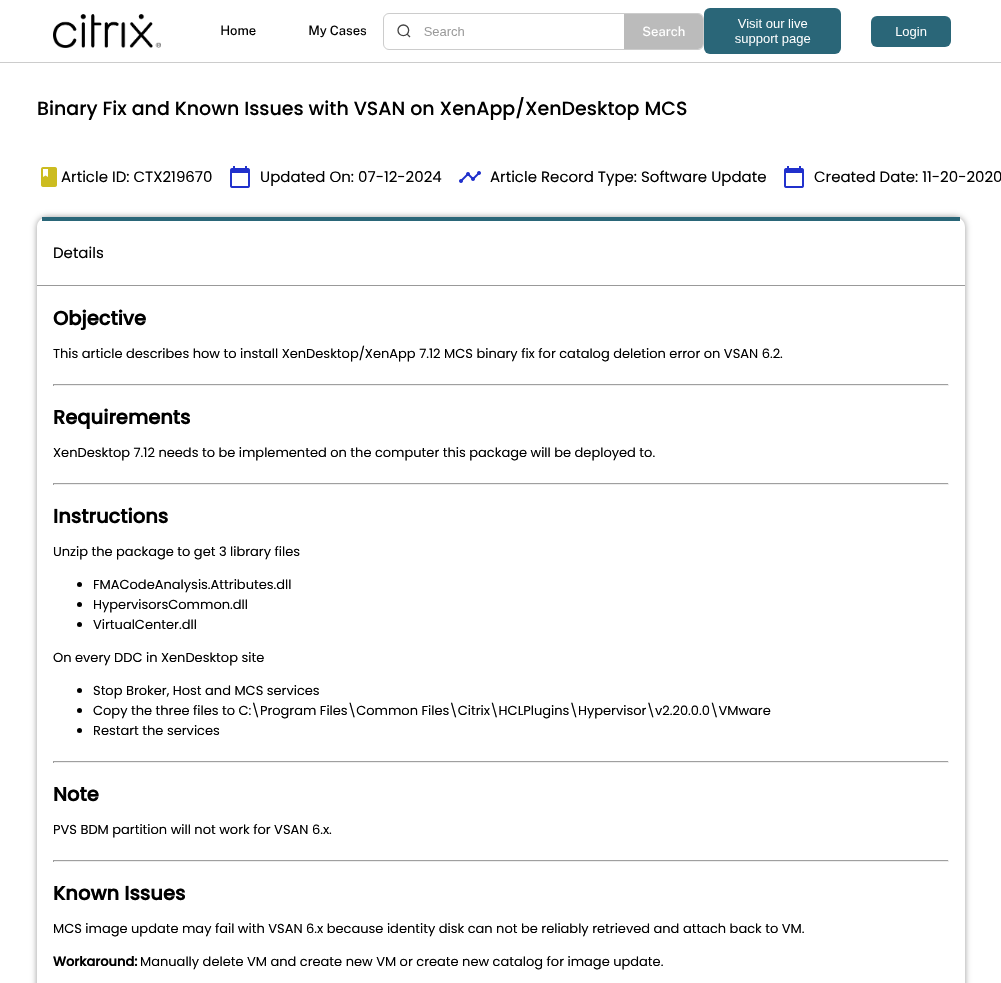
#include "include/core/SkBlurTypes.h"
#include "include/core/SkCanvas.h"
#include "include/core/SkData.h"
#include "include/core/SkFont.h"
#include "include/core/SkFontMgr.h"
#include "include/core/SkImage.h"
#include "include/core/SkMaskFilter.h"
#include "include/core/SkPaint.h"
#include "include/core/SkPathBuilder.h"
#include "include/core/SkTextBlob.h"
#include "include/effects/SkDashPathEffect.h"
#include "include/effects/SkGradientShader.h"
#include "include/utils/SkParsePath.h"

extern sk_sp<SkFontMgr> fontMgr;

static SkFont font(const char* family, int weight, float size, bool italic = false) {
    SkFontStyle style(weight, SkFontStyle::kNormal_Width,
        italic ? SkFontStyle::kItalic_Slant : SkFontStyle::kUpright_Slant);
    SkFont result(fontMgr->matchFamilyStyle(family, style), size);
    result.setSubpixel(true);
    return result;
}

static void drawLabel(SkCanvas* canvas, const char* s, float x, float y, const SkFont& font, SkColor color) {
    SkPaint ink(SkColor4f::FromColor(color));
    ink.setAntiAlias(true);
    canvas->drawString(s, x, y, font, ink);
}

static void fillRect(SkCanvas* canvas, float x, float y, float w, float h, SkColor color) {
    SkPaint ink(SkColor4f::FromColor(color));
    ink.setAntiAlias(true);
    canvas->drawRect(SkRect::MakeXYWH(x, y, w, h), ink);
}

static void drawPhoto(SkCanvas* canvas, const char* path, float x, float y, float w, float h) {
    auto image = SkImages::DeferredFromEncodedData(SkData::MakeFromFileName(path));
    canvas->drawImageRect(image, SkRect::MakeXYWH(x, y, w, h), SkSamplingOptions());
}

static SkPath parsePath(const char* data, bool evenOdd = false) {
    SkPath result = *SkParsePath::FromSVGString(data);
    if (evenOdd) result.setFillType(SkPathFillType::kEvenOdd);
    return result;
}

void draw(SkCanvas* canvas) {
    SkPaint paint;
    paint.setAntiAlias(true);
    canvas->clear(0xFFFFFFFF);
    drawPhoto(canvas, "assets/img1.png", 0, 8, 1001, 55);
    SkFont font1 = font("Poppins", 500, 19);
    drawLabel(canvas, "Binary Fix and Known Issues with VSAN on XenApp/XenDesktop MCS", 37, 115, font1, 0xFF000000);
    drawPhoto(canvas, "assets/img2.png", 41, 167, 16, 20);
    SkFont font2 = font("Poppins", 400, 15);
    drawLabel(canvas, "Article ID: CTX219670", 61, 182, font2, 0xFF000000);
    drawPhoto(canvas, "assets/img3.png", 230, 166, 20, 22);
    drawLabel(canvas, "Updated On: 07-12-2024", 260, 182, font2, 0xFF000000);
    drawPhoto(canvas, "assets/img4.png", 459, 171, 22, 12);
    drawLabel(canvas, "Article Record Type: Software Update", 490, 182, font2, 0xFF000000);
    drawPhoto(canvas, "assets/img3.png", 784, 166, 20, 22);
    drawLabel(canvas, "Created Date: 11-20-2020", 814, 182, font2, 0xFF000000);
    canvas->save();
    canvas->clipPath(parsePath("M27 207H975V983H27ZM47 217H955C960.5 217 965 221.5 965 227V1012C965 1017.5 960.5 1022 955 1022H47C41.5 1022 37 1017.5 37 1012V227C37 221.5 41.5 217 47 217Z", true), true);
    paint.setColor(0x66000000);
    paint.setMaskFilter(SkMaskFilter::MakeBlur(kNormal_SkBlurStyle, 3));
    canvas->drawRoundRect(SkRect::MakeXYWH(37, 217, 928, 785), 10, 10, paint);
    paint.setMaskFilter(nullptr);
    canvas->restore();
    fillRect(canvas, 42, 217, 918, 4, 0xFF2A6678);
    fillRect(canvas, 37, 285, 928, 1, 0xFF999999);
    drawLabel(canvas, "Details", 53, 258, font2, 0xFF000000);
    SkFont font3 = font("Poppins", 700, 19.5f);
    drawLabel(canvas, "Objective", 53, 325, font3, 0xFF000000);
    SkFont font4 = font("Poppins", 400, 13);
    drawLabel(canvas, "This article describes how to install XenDesktop/XenApp 7.12 MCS binary fix for catalog deletion error on VSAN 6.2.", 53, 358, font4, 0xFF000000);
    fillRect(canvas, 53, 384, 896, 1, 0xFF9F9F9F);
    fillRect(canvas, 948, 384, 1, 2, 0xFFEEEEEE);
    fillRect(canvas, 53, 385, 896, 1, 0xFFEEEEEE);
    fillRect(canvas, 53, 384, 1, 2, 0xFF9F9F9F);
    drawLabel(canvas, "Requirements", 53, 424, font3, 0xFF000000);
    drawLabel(canvas, "XenDesktop 7.12 needs to be implemented on the computer this package will be deployed to.", 53, 457, font4, 0xFF000000);
    fillRect(canvas, 53, 483, 896, 1, 0xFF9F9F9F);
    fillRect(canvas, 948, 483, 1, 2, 0xFFEEEEEE);
    fillRect(canvas, 53, 484, 896, 1, 0xFFEEEEEE);
    fillRect(canvas, 53, 483, 1, 2, 0xFF9F9F9F);
    drawLabel(canvas, "Instructions", 53, 523, font3, 0xFF000000);
    drawLabel(canvas, "Unzip the package to get 3 library files", 53, 556, font4, 0xFF000000);
    paint.setColor(0xFF000000);
    canvas->drawCircle(79.5f, 584.5f, 2.5f, paint);
    drawLabel(canvas, "FMACodeAnalysis.Attributes.dll", 93, 589, font4, 0xFF000000);
    canvas->drawCircle(79.5f, 604.5f, 2.5f, paint);
    drawLabel(canvas, "HypervisorsCommon.dll", 93, 609, font4, 0xFF000000);
    canvas->drawCircle(79.5f, 624.5f, 2.5f, paint);
    drawLabel(canvas, "VirtualCenter.dll", 93, 629, font4, 0xFF000000);
    drawLabel(canvas, "On every DDC in XenDesktop site", 53, 662, font4, 0xFF000000);
    canvas->drawCircle(79.5f, 690.5f, 2.5f, paint);
    drawLabel(canvas, "Stop Broker, Host and MCS services", 93, 695, font4, 0xFF000000);
    canvas->drawCircle(79.5f, 710.5f, 2.5f, paint);
    drawLabel(canvas, "Copy the three files to C:\\Program Files\\Common Files\\Citrix\\HCLPlugins\\Hypervisor\\v2.20.0.0\\VMware", 93, 715, font4, 0xFF000000);
    canvas->drawCircle(79.5f, 730.5f, 2.5f, paint);
    drawLabel(canvas, "Restart the services", 93, 735, font4, 0xFF000000);
    fillRect(canvas, 53, 761, 896, 1, 0xFF9F9F9F);
    fillRect(canvas, 948, 761, 1, 2, 0xFFEEEEEE);
    fillRect(canvas, 53, 762, 896, 1, 0xFFEEEEEE);
    fillRect(canvas, 53, 761, 1, 2, 0xFF9F9F9F);
    drawLabel(canvas, "Note", 53, 801, font3, 0xFF000000);
    drawLabel(canvas, "PVS BDM partition will not work for VSAN 6.x.", 53, 834, font4, 0xFF000000);
    fillRect(canvas, 53, 860, 896, 1, 0xFF9F9F9F);
    fillRect(canvas, 948, 860, 1, 2, 0xFFEEEEEE);
    fillRect(canvas, 53, 861, 896, 1, 0xFFEEEEEE);
    fillRect(canvas, 53, 860, 1, 2, 0xFF9F9F9F);
    drawLabel(canvas, "Known Issues", 53, 900, font3, 0xFF000000);
    drawLabel(canvas, "MCS image update may fail with VSAN 6.x because identity disk can not be reliably retrieved and attach back to VM.", 53, 933, font4, 0xFF000000);
    SkFont font5 = font("Poppins", 700, 13);
    drawLabel(canvas, "Workaround:", 53, 966, font5, 0xFF000000);
    drawLabel(canvas, "Manually delete VM and create new VM or create new catalog for image update.", 140, 966, font4, 0xFF000000);
}
